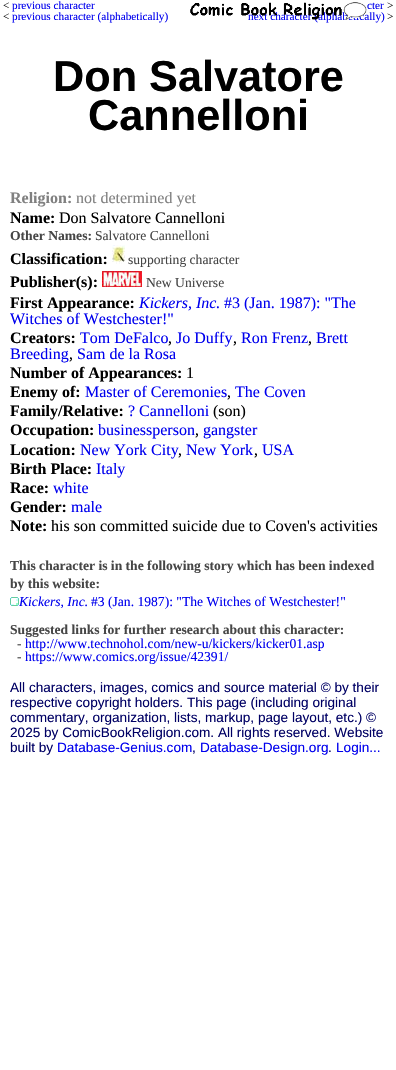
#include "include/core/SkBlurTypes.h"
#include "include/core/SkCanvas.h"
#include "include/core/SkData.h"
#include "include/core/SkFont.h"
#include "include/core/SkFontMgr.h"
#include "include/core/SkImage.h"
#include "include/core/SkMaskFilter.h"
#include "include/core/SkPaint.h"
#include "include/core/SkPathBuilder.h"
#include "include/core/SkTextBlob.h"
#include "include/effects/SkDashPathEffect.h"
#include "include/effects/SkGradientShader.h"
#include "include/utils/SkParsePath.h"

extern sk_sp<SkFontMgr> fontMgr;

static SkFont font(const char* family, int weight, float size, bool italic = false) {
    SkFontStyle style(weight, SkFontStyle::kNormal_Width,
        italic ? SkFontStyle::kItalic_Slant : SkFontStyle::kUpright_Slant);
    SkFont result(fontMgr->matchFamilyStyle(family, style), size);
    result.setSubpixel(true);
    return result;
}

static void drawLabel(SkCanvas* canvas, const char* s, float x, float y, const SkFont& font, SkColor color) {
    SkPaint ink(SkColor4f::FromColor(color));
    ink.setAntiAlias(true);
    canvas->drawString(s, x, y, font, ink);
}

static void drawPhoto(SkCanvas* canvas, const char* path, float x, float y, float w, float h) {
    auto image = SkImages::DeferredFromEncodedData(SkData::MakeFromFileName(path));
    canvas->drawImageRect(image, SkRect::MakeXYWH(x, y, w, h), SkSamplingOptions());
}

void draw(SkCanvas* canvas) {
    SkPaint paint;
    paint.setAntiAlias(true);
    canvas->clear(0xFFFFFFFF);
    SkFont font1 = font("Liberation Serif", 400, 11.25f);
    drawLabel(canvas, "<", 3, 9, font1, 0xFF000000);
    drawLabel(canvas, "previous character", 12, 9, font1, 0xFF0000EE);
    drawLabel(canvas, "<", 3, 20, font1, 0xFF000000);
    drawLabel(canvas, "previous character (alphabetically)", 12, 20, font1, 0xFF0000EE);
    drawLabel(canvas, "next character (alphabetically)", 248, 20, font1, 0xFF0000EE);
    drawPhoto(canvas, "assets/img1.png", 190, 2, 177, 18);
    drawLabel(canvas, "cter", 367, 9, font1, 0xFF0000EE);
    drawLabel(canvas, ">", 387, 9, font1, 0xFF000000);
    drawLabel(canvas, ">", 387, 20, font1, 0xFF000000);
    SkFont font2 = font("Liberation Sans", 700, 43.25f);
    drawLabel(canvas, "Don Salvatore", 53, 91, font2, 0xFF000000);
    drawLabel(canvas, "Cannelloni", 88, 130, font2, 0xFF000000);
    SkFont font3 = font("Liberation Serif", 700, 16);
    drawLabel(canvas, "Religion:", 10, 203, font3, 0xFF808080);
    SkFont font4 = font("Liberation Serif", 400, 16);
    drawLabel(canvas, "not determined yet", 76, 203, font4, 0xFF808080);
    drawLabel(canvas, "Name:", 10, 223, font3, 0xFF000000);
    drawLabel(canvas, "Don Salvatore Cannelloni", 59, 223, font4, 0xFF000000);
    SkFont font5 = font("Liberation Serif", 700, 13.6f);
    drawLabel(canvas, "Other Names:", 10, 240, font5, 0xFF464646);
    SkFont font6 = font("Liberation Serif", 400, 13.6f);
    drawLabel(canvas, "Salvatore Cannelloni", 95, 240, font6, 0xFF464646);
    drawLabel(canvas, "Classification:", 10, 264, font3, 0xFF000000);
    drawPhoto(canvas, "assets/img2.png", 112, 245, 13, 19);
    drawLabel(canvas, "supporting character", 128, 264, font6, 0xFF464646);
    drawLabel(canvas, "Publisher(s):", 10, 287, font3, 0xFF000000);
    drawPhoto(canvas, "assets/img3.png", 102, 271, 40, 16);
    drawLabel(canvas, "New Universe", 146, 287, font6, 0xFF464646);
    drawLabel(canvas, "First Appearance:", 10, 308, font3, 0xFF000000);
    SkFont font7 = font("Liberation Serif", 400, 16, true);
    drawLabel(canvas, "Kickers, Inc.", 139, 308, font7, 0xFF0000EE);
    drawLabel(canvas, "#3 (Jan. 1987): \"The", 224, 308, font4, 0xFF0000EE);
    drawLabel(canvas, "Witches of Westchester!\"", 10, 324, font4, 0xFF0000EE);
    drawLabel(canvas, "Creators:", 10, 343, font3, 0xFF000000);
    drawLabel(canvas, "Tom DeFalco", 80, 343, font4, 0xFF0000EE);
    drawLabel(canvas, ",", 168, 343, font4, 0xFF000000);
    drawLabel(canvas, "Jo Duffy", 176, 343, font4, 0xFF0000EE);
    drawLabel(canvas, ",", 233, 343, font4, 0xFF000000);
    drawLabel(canvas, "Ron Frenz", 241, 343, font4, 0xFF0000EE);
    drawLabel(canvas, ",", 308, 343, font4, 0xFF000000);
    drawLabel(canvas, "Brett", 316, 343, font4, 0xFF0000EE);
    drawLabel(canvas, "Breeding", 10, 359, font4, 0xFF0000EE);
    drawLabel(canvas, ",", 69, 359, font4, 0xFF000000);
    drawLabel(canvas, "Sam de la Rosa", 77, 359, font4, 0xFF0000EE);
    drawLabel(canvas, "Number of Appearances:", 10, 378, font3, 0xFF000000);
    drawLabel(canvas, "1", 186, 378, font4, 0xFF000000);
    drawLabel(canvas, "Enemy of:", 10, 397, font3, 0xFF000000);
    drawLabel(canvas, "Master of Ceremonies", 85, 397, font4, 0xFF0000EE);
    drawLabel(canvas, ",", 227, 397, font4, 0xFF000000);
    drawLabel(canvas, "The Coven", 235, 397, font4, 0xFF0000EE);
    drawLabel(canvas, "Family/Relative:", 10, 416, font3, 0xFF000000);
    drawLabel(canvas, "? Cannelloni", 128, 416, font4, 0xFF0000EE);
    drawLabel(canvas, "(son)", 213, 416, font4, 0xFF000000);
    drawLabel(canvas, "Occupation:", 10, 435, font3, 0xFF000000);
    drawLabel(canvas, "businessperson", 98, 435, font4, 0xFF0000EE);
    drawLabel(canvas, ",", 195, 435, font4, 0xFF000000);
    drawLabel(canvas, "gangster", 203, 435, font4, 0xFF0000EE);
    drawLabel(canvas, "Location:", 10, 455, font3, 0xFF000000);
    drawLabel(canvas, "New York City", 80, 455, font4, 0xFF0000EE);
    drawLabel(canvas, ",", 178, 455, font4, 0xFF000000);
    drawLabel(canvas, "New York", 186, 455, font4, 0xFF0000EE);
    drawLabel(canvas, ",", 254, 455, font4, 0xFF000000);
    drawLabel(canvas, "USA", 262, 455, font4, 0xFF0000EE);
    drawLabel(canvas, "Birth Place:", 10, 474, font3, 0xFF000000);
    drawLabel(canvas, "Italy", 96, 474, font4, 0xFF0000EE);
    drawLabel(canvas, "Race:", 10, 493, font3, 0xFF000000);
    drawLabel(canvas, "white", 53, 493, font4, 0xFF0000EE);
    drawLabel(canvas, "Gender:", 10, 512, font3, 0xFF000000);
    drawLabel(canvas, "male", 71, 512, font4, 0xFF0000EE);
    drawLabel(canvas, "Note:", 10, 531, font3, 0xFF000000);
    drawLabel(canvas, "his son committed suicide due to Coven's activities", 51, 531, font4, 0xFF000000);
    drawLabel(canvas, "This character is in the following story which has been indexed", 10, 570, font5, 0xFF464646);
    drawLabel(canvas, "by this website:", 10, 588, font5, 0xFF464646);
    drawPhoto(canvas, "assets/img4.png", 10, 597, 9, 9);
    SkFont font8 = font("Liberation Serif", 400, 13.6f, true);
    drawLabel(canvas, "Kickers, Inc.", 19, 606, font8, 0xFF0000EE);
    drawLabel(canvas, "#3 (Jan. 1987): \"The Witches of Westchester!\"", 91, 606, font6, 0xFF0000EE);
    drawLabel(canvas, "Suggested links for further research about this character:", 10, 634, font5, 0xFF464646);
    drawLabel(canvas, "-", 17, 648, font6, 0xFF464646);
    drawLabel(canvas, "http://www.technohol.com/new-u/kickers/kicker01.asp", 25, 648, font6, 0xFF0000EE);
    drawLabel(canvas, "-", 17, 661, font6, 0xFF464646);
    drawLabel(canvas, "https://www.comics.org/issue/42391/", 25, 661, font6, 0xFF0000EE);
    SkFont font9 = font("Liberation Sans", 400, 13.6f);
    drawLabel(canvas, "All characters, images, comics and source material © by their", 10, 692, font9, 0xFF000064);
    drawLabel(canvas, "respective copyright holders. This page (including original", 10, 707, font9, 0xFF000064);
    drawLabel(canvas, "commentary, organization, lists, markup, page layout, etc.) ©", 10, 722, font9, 0xFF000064);
    drawLabel(canvas, "2025 by ComicBookReligion.com. All rights reserved. Website", 10, 737, font9, 0xFF000064);
    drawLabel(canvas, "built by", 10, 752, font9, 0xFF000064);
    drawLabel(canvas, "Database-Genius.com", 57, 752, font9, 0xFF0000EE);
    drawLabel(canvas, ",", 192, 752, font9, 0xFF000064);
    drawLabel(canvas, "Database-Design.org", 200, 752, font9, 0xFF0000EE);
    drawLabel(canvas, ".", 328, 752, font9, 0xFF000064);
    drawLabel(canvas, "Login...", 336, 752, font9, 0xFF0000EE);
}
